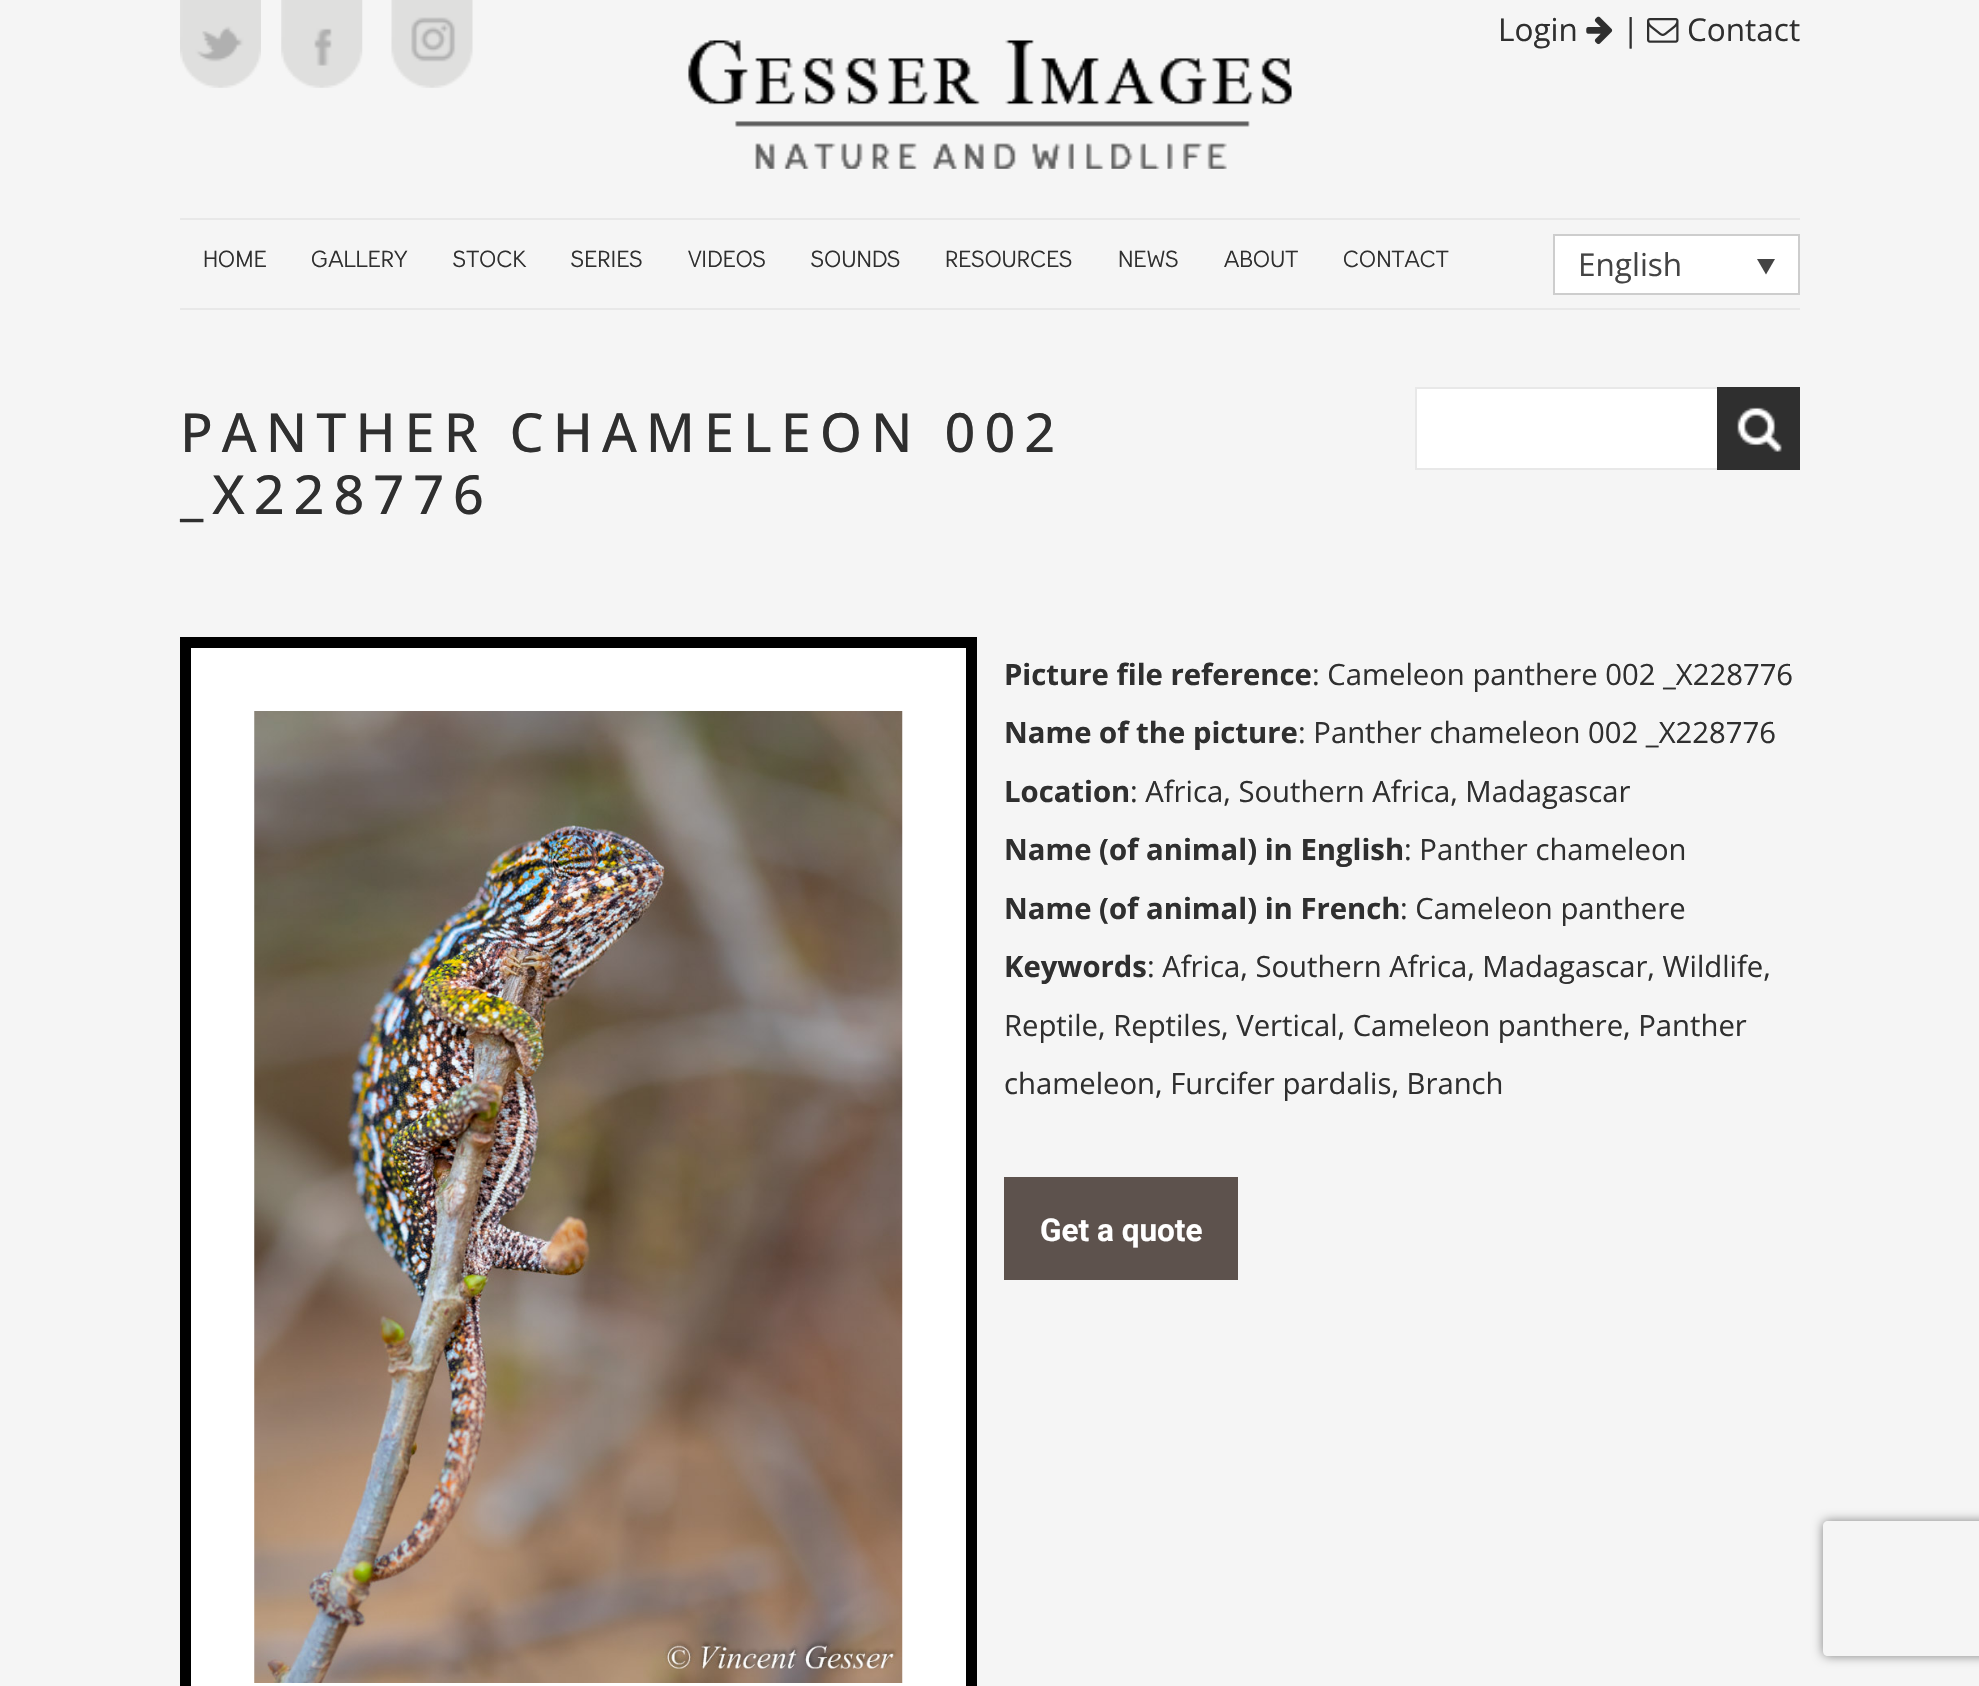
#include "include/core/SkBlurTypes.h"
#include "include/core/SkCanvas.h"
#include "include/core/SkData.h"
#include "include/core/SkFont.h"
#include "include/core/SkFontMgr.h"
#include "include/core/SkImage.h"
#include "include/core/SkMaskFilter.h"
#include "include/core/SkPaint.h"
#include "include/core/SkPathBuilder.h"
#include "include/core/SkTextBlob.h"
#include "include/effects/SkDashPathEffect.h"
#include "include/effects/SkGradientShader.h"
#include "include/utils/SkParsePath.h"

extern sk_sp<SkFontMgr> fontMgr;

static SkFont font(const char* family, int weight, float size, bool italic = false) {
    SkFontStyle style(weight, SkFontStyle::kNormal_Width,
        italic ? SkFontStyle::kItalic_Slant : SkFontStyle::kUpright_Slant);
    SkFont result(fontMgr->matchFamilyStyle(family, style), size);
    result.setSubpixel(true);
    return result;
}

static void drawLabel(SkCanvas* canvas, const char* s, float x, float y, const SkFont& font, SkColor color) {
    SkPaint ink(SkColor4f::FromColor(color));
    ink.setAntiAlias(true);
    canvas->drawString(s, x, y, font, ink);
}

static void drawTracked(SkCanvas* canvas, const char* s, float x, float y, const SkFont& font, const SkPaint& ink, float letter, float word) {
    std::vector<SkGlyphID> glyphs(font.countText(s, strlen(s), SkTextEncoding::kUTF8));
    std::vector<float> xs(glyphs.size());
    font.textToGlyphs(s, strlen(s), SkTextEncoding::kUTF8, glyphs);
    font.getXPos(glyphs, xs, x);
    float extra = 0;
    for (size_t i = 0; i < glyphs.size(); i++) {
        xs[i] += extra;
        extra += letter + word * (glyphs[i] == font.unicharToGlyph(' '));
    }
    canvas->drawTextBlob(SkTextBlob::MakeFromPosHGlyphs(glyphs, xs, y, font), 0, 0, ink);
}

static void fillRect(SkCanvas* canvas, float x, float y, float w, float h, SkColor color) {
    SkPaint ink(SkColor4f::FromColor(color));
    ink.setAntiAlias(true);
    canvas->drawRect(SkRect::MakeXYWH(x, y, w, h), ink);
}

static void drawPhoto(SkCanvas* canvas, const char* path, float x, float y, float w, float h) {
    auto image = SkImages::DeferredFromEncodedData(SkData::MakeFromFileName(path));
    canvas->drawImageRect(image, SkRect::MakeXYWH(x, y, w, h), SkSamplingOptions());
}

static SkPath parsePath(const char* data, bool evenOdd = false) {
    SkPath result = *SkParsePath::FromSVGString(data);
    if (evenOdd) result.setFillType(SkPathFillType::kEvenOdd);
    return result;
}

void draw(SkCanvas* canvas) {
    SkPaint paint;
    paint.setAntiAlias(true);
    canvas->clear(0xFFF5F5F5);
    drawPhoto(canvas, "assets/img1.png", 180, 0, 81, 88);
    drawPhoto(canvas, "assets/img2.png", 281, 0, 82, 88);
    drawPhoto(canvas, "assets/img3.png", 391, 0, 82, 88);
    SkFont font1 = font("Open Sans", 400, 31.5f);
    drawLabel(canvas, "Login", 1498, 41, font1, 0xFF2F2F2F);
    drawPhoto(canvas, "assets/img4.png", 1586, 16, 27, 29);
    drawLabel(canvas, "|", 1622, 41, font1, 0xFF2F2F2F);
    drawPhoto(canvas, "assets/img5.png", 1647, 18, 32, 25);
    drawLabel(canvas, "Contact", 1687, 41, font1, 0xFF2F2F2F);
    drawPhoto(canvas, "assets/img6.png", 688, 40, 604, 129);
    fillRect(canvas, 180, 218, 1620, 2, 0xFFE8E8E8);
    fillRect(canvas, 180, 308, 1620, 2, 0xFFE8E8E8);
    SkFont font2 = font("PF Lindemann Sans", 400, 22.5f);
    drawLabel(canvas, "HOME", 203, 267, font2, 0xFF2F2F2F);
    drawLabel(canvas, "GALLERY", 311, 267, font2, 0xFF2F2F2F);
    drawLabel(canvas, "STOCK", 453, 267, font2, 0xFF2F2F2F);
    drawLabel(canvas, "SERIES", 571, 267, font2, 0xFF2F2F2F);
    drawLabel(canvas, "VIDEOS", 688, 267, font2, 0xFF2F2F2F);
    drawLabel(canvas, "SOUNDS", 811, 267, font2, 0xFF2F2F2F);
    drawLabel(canvas, "RESOURCES", 945, 267, font2, 0xFF2F2F2F);
    drawLabel(canvas, "NEWS", 1118, 267, font2, 0xFF2F2F2F);
    drawLabel(canvas, "ABOUT", 1224, 267, font2, 0xFF2F2F2F);
    drawLabel(canvas, "CONTACT", 1343, 267, font2, 0xFF2F2F2F);
    paint.setColor(0xFFFFFFFF);
    canvas->drawRect(SkRect::MakeXYWH(1554, 235, 245, 59), paint);
    paint.setStroke(true);
    paint.setStrokeWidth(2);
    paint.setColor(0xFFCDCDCD);
    canvas->drawRect(SkRect::MakeXYWH(1554, 235, 245, 59), paint);
    drawLabel(canvas, "English", 1578, 276, font1, 0xFF444444);
    paint.setStroke(false);
    paint.setColor(0xFF444444);
    canvas->drawPath(parsePath("M1757 259H1775L1766 274.5Z"), paint);
    SkFont font3 = font("Open Sans", 500, 54);
    paint.setColor(0xFF2F2F2F);
    drawTracked(canvas, "PANTHER CHAMELEON 002", 180, 452, font3, paint, 9, 0);
    drawTracked(canvas, "_X228776", 180, 514, font3, paint, 9, 0);
    fillRect(canvas, 1417, 389, 300, 79, 0xFFFFFFFF);
    paint.setStroke(true);
    paint.setColor(0xFFE8E8E8);
    canvas->drawRect(SkRect::MakeXYWH(1416, 388, 383, 81), paint);
    fillRect(canvas, 1717, 387, 83, 83, 0xFF2F2F2F);
    drawPhoto(canvas, "assets/img7.png", 1737, 407, 45, 45);
    paint.setStroke(false);
    paint.setColor(0xFFFFFFFF);
    canvas->drawRect(SkRect::MakeXYWH(185.5f, 642.5f, 786, 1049), paint);
    paint.setStroke(true);
    paint.setStrokeWidth(11);
    paint.setColor(0xFF000000);
    canvas->drawRect(SkRect::MakeXYWH(185.5f, 642.5f, 786, 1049), paint);
    drawPhoto(canvas, "assets/img8.png", 254, 711, 649, 972);
    SkFont font4 = font("Open Sans", 700, 29.25f);
    drawLabel(canvas, "Picture file reference", 1004, 685, font4, 0xFF2F2F2F);
    SkFont font5 = font("Open Sans", 400, 29.25f);
    drawLabel(canvas, ": Cameleon panthere 002 _X228776", 1312, 685, font5, 0xFF2F2F2F);
    drawLabel(canvas, "Name of the picture", 1004, 743, font4, 0xFF2F2F2F);
    drawLabel(canvas, ": Panther chameleon 002 _X228776", 1298, 743, font5, 0xFF2F2F2F);
    drawLabel(canvas, "Location", 1004, 802, font4, 0xFF2F2F2F);
    drawLabel(canvas, ": Africa, Southern Africa, Madagascar", 1130, 802, font5, 0xFF2F2F2F);
    drawLabel(canvas, "Name (of animal) in English", 1004, 860, font4, 0xFF2F2F2F);
    drawLabel(canvas, ": Panther chameleon", 1404, 860, font5, 0xFF2F2F2F);
    drawLabel(canvas, "Name (of animal) in French", 1004, 919, font4, 0xFF2F2F2F);
    drawLabel(canvas, ": Cameleon panthere", 1400, 919, font5, 0xFF2F2F2F);
    drawLabel(canvas, "Keywords", 1004, 977, font4, 0xFF2F2F2F);
    drawLabel(canvas, ": Africa, Southern Africa, Madagascar, Wildlife,", 1147, 977, font5, 0xFF2F2F2F);
    drawLabel(canvas, "Reptile, Reptiles, Vertical, Cameleon panthere, Panther", 1004, 1036, font5, 0xFF2F2F2F);
    drawLabel(canvas, "chameleon, Furcifer pardalis, Branch", 1004, 1094, font5, 0xFF2F2F2F);
    fillRect(canvas, 1004, 1177, 234, 103, 0xFF5D524D);
    SkFont font6 = font("Roboto", 700, 31.5f);
    drawLabel(canvas, "Get a quote", 1040, 1241, font6, 0xFFFFFFFF);
    canvas->save();
    canvas->clipPath(parsePath("M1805 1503H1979V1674H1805ZM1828 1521H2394C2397 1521 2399 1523 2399 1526V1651C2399 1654 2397 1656 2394 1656H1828C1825 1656 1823 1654 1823 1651V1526C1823 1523 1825 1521 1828 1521Z", true), true);
    paint.setStroke(false);
    paint.setColor(0xFF808080);
    paint.setMaskFilter(SkMaskFilter::MakeBlur(kNormal_SkBlurStyle, 5.5f));
    canvas->drawRoundRect(SkRect::MakeXYWH(1823, 1521, 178, 135), 5, 5, paint);
    paint.setMaskFilter(nullptr);
    canvas->restore();
}
